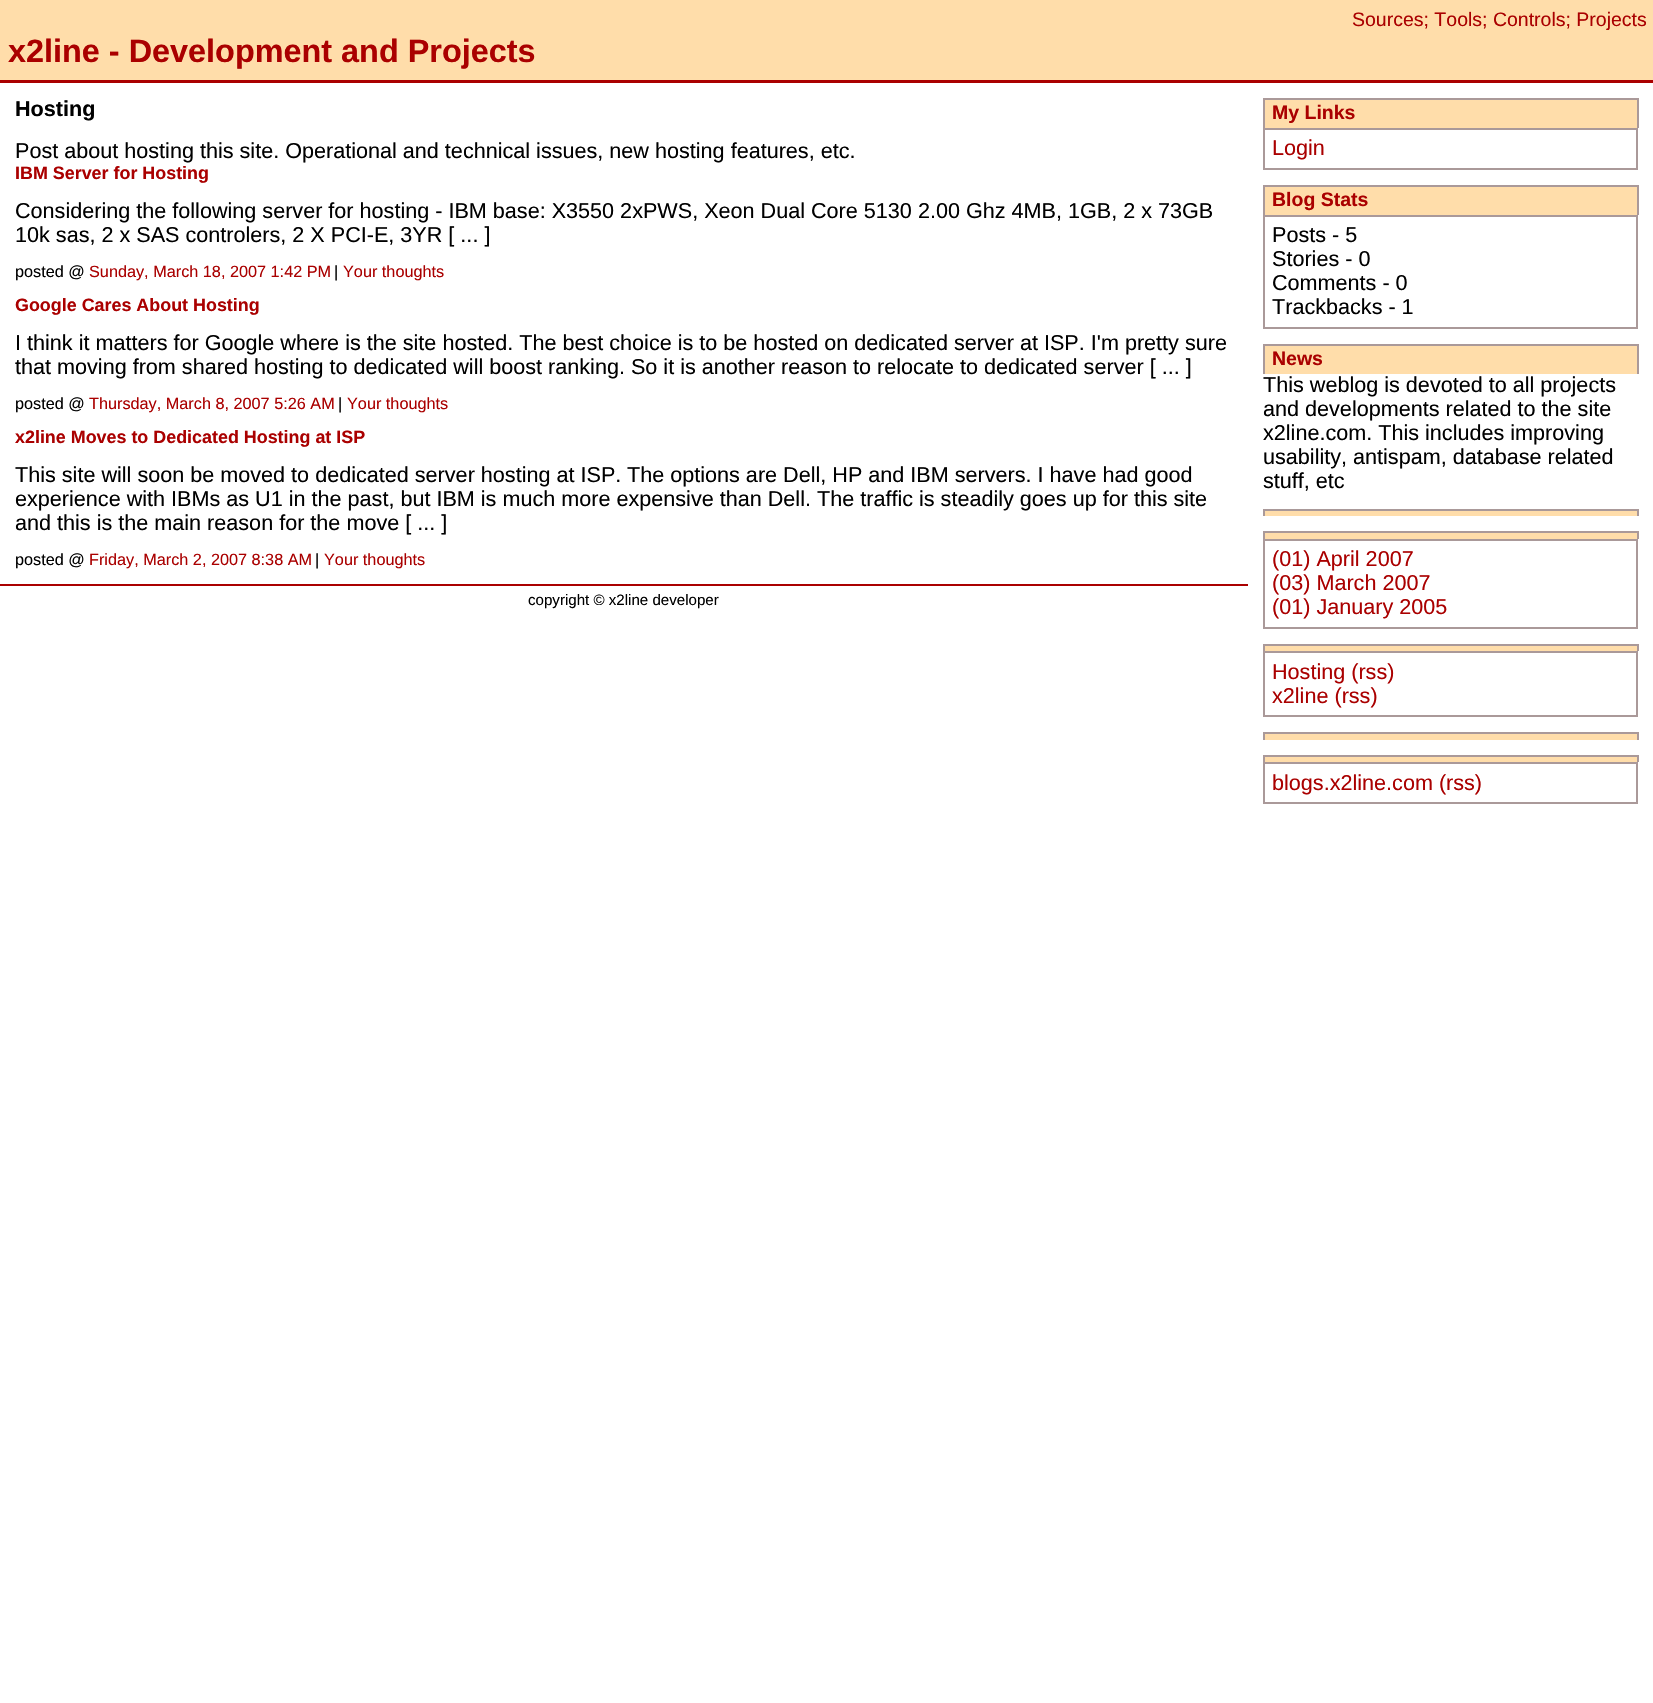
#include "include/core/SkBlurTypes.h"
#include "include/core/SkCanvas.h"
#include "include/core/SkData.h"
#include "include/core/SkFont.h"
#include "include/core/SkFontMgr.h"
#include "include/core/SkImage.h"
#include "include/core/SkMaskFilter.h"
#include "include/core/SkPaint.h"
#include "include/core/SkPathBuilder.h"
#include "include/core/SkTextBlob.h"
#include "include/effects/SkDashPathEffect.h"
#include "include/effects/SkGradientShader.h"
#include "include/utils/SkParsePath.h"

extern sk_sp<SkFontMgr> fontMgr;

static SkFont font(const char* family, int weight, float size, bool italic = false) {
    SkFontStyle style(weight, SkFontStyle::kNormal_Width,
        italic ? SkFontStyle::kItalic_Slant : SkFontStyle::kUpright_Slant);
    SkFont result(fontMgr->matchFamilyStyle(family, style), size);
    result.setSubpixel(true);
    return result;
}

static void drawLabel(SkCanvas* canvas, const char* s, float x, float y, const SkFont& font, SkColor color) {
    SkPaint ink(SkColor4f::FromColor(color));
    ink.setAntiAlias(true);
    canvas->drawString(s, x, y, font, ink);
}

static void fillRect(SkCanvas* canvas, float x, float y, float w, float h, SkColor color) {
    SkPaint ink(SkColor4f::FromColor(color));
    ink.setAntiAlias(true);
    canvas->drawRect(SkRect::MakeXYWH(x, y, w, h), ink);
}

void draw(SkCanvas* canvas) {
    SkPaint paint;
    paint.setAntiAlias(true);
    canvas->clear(0xFFFFFFFF);
    fillRect(canvas, 0, 0, 1653, 80, 0xFFFFDDAA);
    SkFont font1 = font("Liberation Sans", 400, 19.5f);
    drawLabel(canvas, "Sources; Tools; Controls; Projects", 1352, 26, font1, 0xFFAA0000);
    fillRect(canvas, 0, 80, 1653, 3, 0xFFAA0000);
    SkFont font2 = font("Liberation Sans", 700, 32.4f);
    drawLabel(canvas, "x2line - Development and Projects", 8, 62, font2, 0xFFAA0000);
    SkFont font3 = font("Liberation Sans", 700, 21.6f);
    drawLabel(canvas, "Hosting", 15, 116, font3, 0xFF000000);
    SkFont font4 = font("Liberation Sans", 400, 21.6f);
    drawLabel(canvas, "Post about hosting this site. Operational and technical issues, new hosting features, etc.", 15, 158, font4, 0xFF000000);
    SkFont font5 = font("Liberation Sans", 700, 17.9f);
    drawLabel(canvas, "IBM Server for Hosting", 15, 179, font5, 0xFFAA0000);
    drawLabel(canvas, "Considering the following server for hosting - IBM base: X3550 2xPWS, Xeon Dual Core 5130 2.00 Ghz 4MB, 1GB, 2 x 73GB", 15, 218, font4, 0xFF000000);
    drawLabel(canvas, "10k sas, 2 x SAS controlers, 2 X PCI-E, 3YR [ ... ]", 15, 242, font4, 0xFF000000);
    SkFont font6 = font("Liberation Sans", 400, 16.25f);
    drawLabel(canvas, "posted @", 15, 277, font6, 0xFF000000);
    drawLabel(canvas, "Sunday, March 18, 2007 1:42 PM", 89, 277, font6, 0xFFAA0000);
    drawLabel(canvas, "|", 334, 277, font6, 0xFF000000);
    drawLabel(canvas, "Your thoughts", 343, 277, font6, 0xFFAA0000);
    drawLabel(canvas, "Google Cares About Hosting", 15, 311, font5, 0xFFAA0000);
    drawLabel(canvas, "I think it matters for Google where is the site hosted. The best choice is to be hosted on dedicated server at ISP. I'm pretty sure", 15, 350, font4, 0xFF000000);
    drawLabel(canvas, "that moving from shared hosting to dedicated will boost ranking. So it is another reason to relocate to dedicated server [ ... ]", 15, 374, font4, 0xFF000000);
    drawLabel(canvas, "posted @", 15, 409, font6, 0xFF000000);
    drawLabel(canvas, "Thursday, March 8, 2007 5:26 AM", 89, 409, font6, 0xFFAA0000);
    drawLabel(canvas, "|", 338, 409, font6, 0xFF000000);
    drawLabel(canvas, "Your thoughts", 347, 409, font6, 0xFFAA0000);
    drawLabel(canvas, "x2line Moves to Dedicated Hosting at ISP", 15, 443, font5, 0xFFAA0000);
    drawLabel(canvas, "This site will soon be moved to dedicated server hosting at ISP.", 15, 482, font4, 0xFF000000);
    drawLabel(canvas, "The options are Dell, HP and IBM servers. I have had good", 627, 482, font4, 0xFF000000);
    drawLabel(canvas, "experience with IBMs as U1 in the past, but IBM is much more expensive than Dell. The traffic is steadily goes up for this site", 15, 506, font4, 0xFF000000);
    drawLabel(canvas, "and this is the main reason for the move [ ... ]", 15, 530, font4, 0xFF000000);
    drawLabel(canvas, "posted @", 15, 565, font6, 0xFF000000);
    drawLabel(canvas, "Friday, March 2, 2007 8:38 AM", 89, 565, font6, 0xFFAA0000);
    drawLabel(canvas, "|", 315, 565, font6, 0xFF000000);
    drawLabel(canvas, "Your thoughts", 324, 565, font6, 0xFFAA0000);
    fillRect(canvas, 1265, 100, 372, 28, 0xFFFFDDAA);
    fillRect(canvas, 1263, 98, 375, 2, 0xFFAA9999);
    fillRect(canvas, 1637, 98, 2, 30, 0xFFAA9999);
    fillRect(canvas, 1263, 98, 2, 30, 0xFFAA9999);
    SkFont font7 = font("Liberation Sans", 700, 19.5f);
    drawLabel(canvas, "My Links", 1272, 119, font7, 0xFFAA0000);
    paint.setStroke(true);
    paint.setStrokeWidth(2);
    paint.setColor(0xFFAA9999);
    canvas->drawRect(SkRect::MakeXYWH(1264, 129, 373, 40), paint);
    drawLabel(canvas, "Login", 1272, 155, font4, 0xFFAA0000);
    fillRect(canvas, 1265, 187, 372, 28, 0xFFFFDDAA);
    fillRect(canvas, 1263, 185, 375, 2, 0xFFAA9999);
    fillRect(canvas, 1637, 185, 2, 30, 0xFFAA9999);
    fillRect(canvas, 1263, 185, 2, 30, 0xFFAA9999);
    drawLabel(canvas, "Blog Stats", 1272, 206, font7, 0xFFAA0000);
    canvas->drawRect(SkRect::MakeXYWH(1264, 216, 373, 112), paint);
    drawLabel(canvas, "Posts - 5", 1272, 242, font4, 0xFF000000);
    drawLabel(canvas, "Stories - 0", 1272, 266, font4, 0xFF000000);
    drawLabel(canvas, "Comments - 0", 1272, 290, font4, 0xFF000000);
    drawLabel(canvas, "Trackbacks - 1", 1272, 314, font4, 0xFF000000);
    fillRect(canvas, 1265, 346, 372, 28, 0xFFFFDDAA);
    fillRect(canvas, 1263, 344, 375, 2, 0xFFAA9999);
    fillRect(canvas, 1637, 344, 2, 30, 0xFFAA9999);
    fillRect(canvas, 1263, 344, 2, 30, 0xFFAA9999);
    drawLabel(canvas, "News", 1272, 365, font7, 0xFFAA0000);
    drawLabel(canvas, "This weblog is devoted to all projects", 1263, 392, font4, 0xFF000000);
    drawLabel(canvas, "and developments related to the site", 1263, 416, font4, 0xFF000000);
    drawLabel(canvas, "x2line.com. This includes improving", 1263, 440, font4, 0xFF000000);
    drawLabel(canvas, "usability, antispam, database related", 1263, 464, font4, 0xFF000000);
    drawLabel(canvas, "stuff, etc", 1263, 488, font4, 0xFF000000);
    fillRect(canvas, 1263, 511, 375, 5, 0xFFFFDDAA);
    fillRect(canvas, 1263, 509, 375, 2, 0xFFAA9999);
    fillRect(canvas, 1637, 509, 2, 7, 0xFFAA9999);
    fillRect(canvas, 1263, 509, 2, 7, 0xFFAA9999);
    fillRect(canvas, 1263, 533, 375, 6, 0xFFFFDDAA);
    fillRect(canvas, 1263, 531, 375, 2, 0xFFAA9999);
    fillRect(canvas, 1637, 531, 2, 8, 0xFFAA9999);
    fillRect(canvas, 1263, 531, 2, 8, 0xFFAA9999);
    canvas->drawRect(SkRect::MakeXYWH(1264, 540, 373, 88), paint);
    drawLabel(canvas, "(01) April 2007", 1272, 566, font4, 0xFFAA0000);
    drawLabel(canvas, "(03) March 2007", 1272, 590, font4, 0xFFAA0000);
    drawLabel(canvas, "(01) January 2005", 1272, 614, font4, 0xFFAA0000);
    fillRect(canvas, 1263, 646, 375, 5, 0xFFFFDDAA);
    fillRect(canvas, 1263, 644, 375, 2, 0xFFAA9999);
    fillRect(canvas, 1637, 644, 2, 7, 0xFFAA9999);
    fillRect(canvas, 1263, 644, 2, 7, 0xFFAA9999);
    canvas->drawRect(SkRect::MakeXYWH(1264, 652, 373, 64), paint);
    drawLabel(canvas, "Hosting (rss)", 1272, 679, font4, 0xFFAA0000);
    drawLabel(canvas, "x2line (rss)", 1272, 703, font4, 0xFFAA0000);
    fillRect(canvas, 1263, 734, 375, 6, 0xFFFFDDAA);
    fillRect(canvas, 1263, 732, 375, 2, 0xFFAA9999);
    fillRect(canvas, 1637, 732, 2, 8, 0xFFAA9999);
    fillRect(canvas, 1263, 732, 2, 8, 0xFFAA9999);
    fillRect(canvas, 1263, 757, 375, 5, 0xFFFFDDAA);
    fillRect(canvas, 1263, 755, 375, 2, 0xFFAA9999);
    fillRect(canvas, 1637, 755, 2, 7, 0xFFAA9999);
    fillRect(canvas, 1263, 755, 2, 7, 0xFFAA9999);
    canvas->drawRect(SkRect::MakeXYWH(1264, 763, 373, 40), paint);
    drawLabel(canvas, "blogs.x2line.com (rss)", 1272, 790, font4, 0xFFAA0000);
    fillRect(canvas, 0, 584, 1248, 2, 0xFFAA0000);
    SkFont font8 = font("Liberation Sans", 400, 15.1f);
    drawLabel(canvas, "copyright © x2line developer", 528, 605, font8, 0xFF000000);
}
